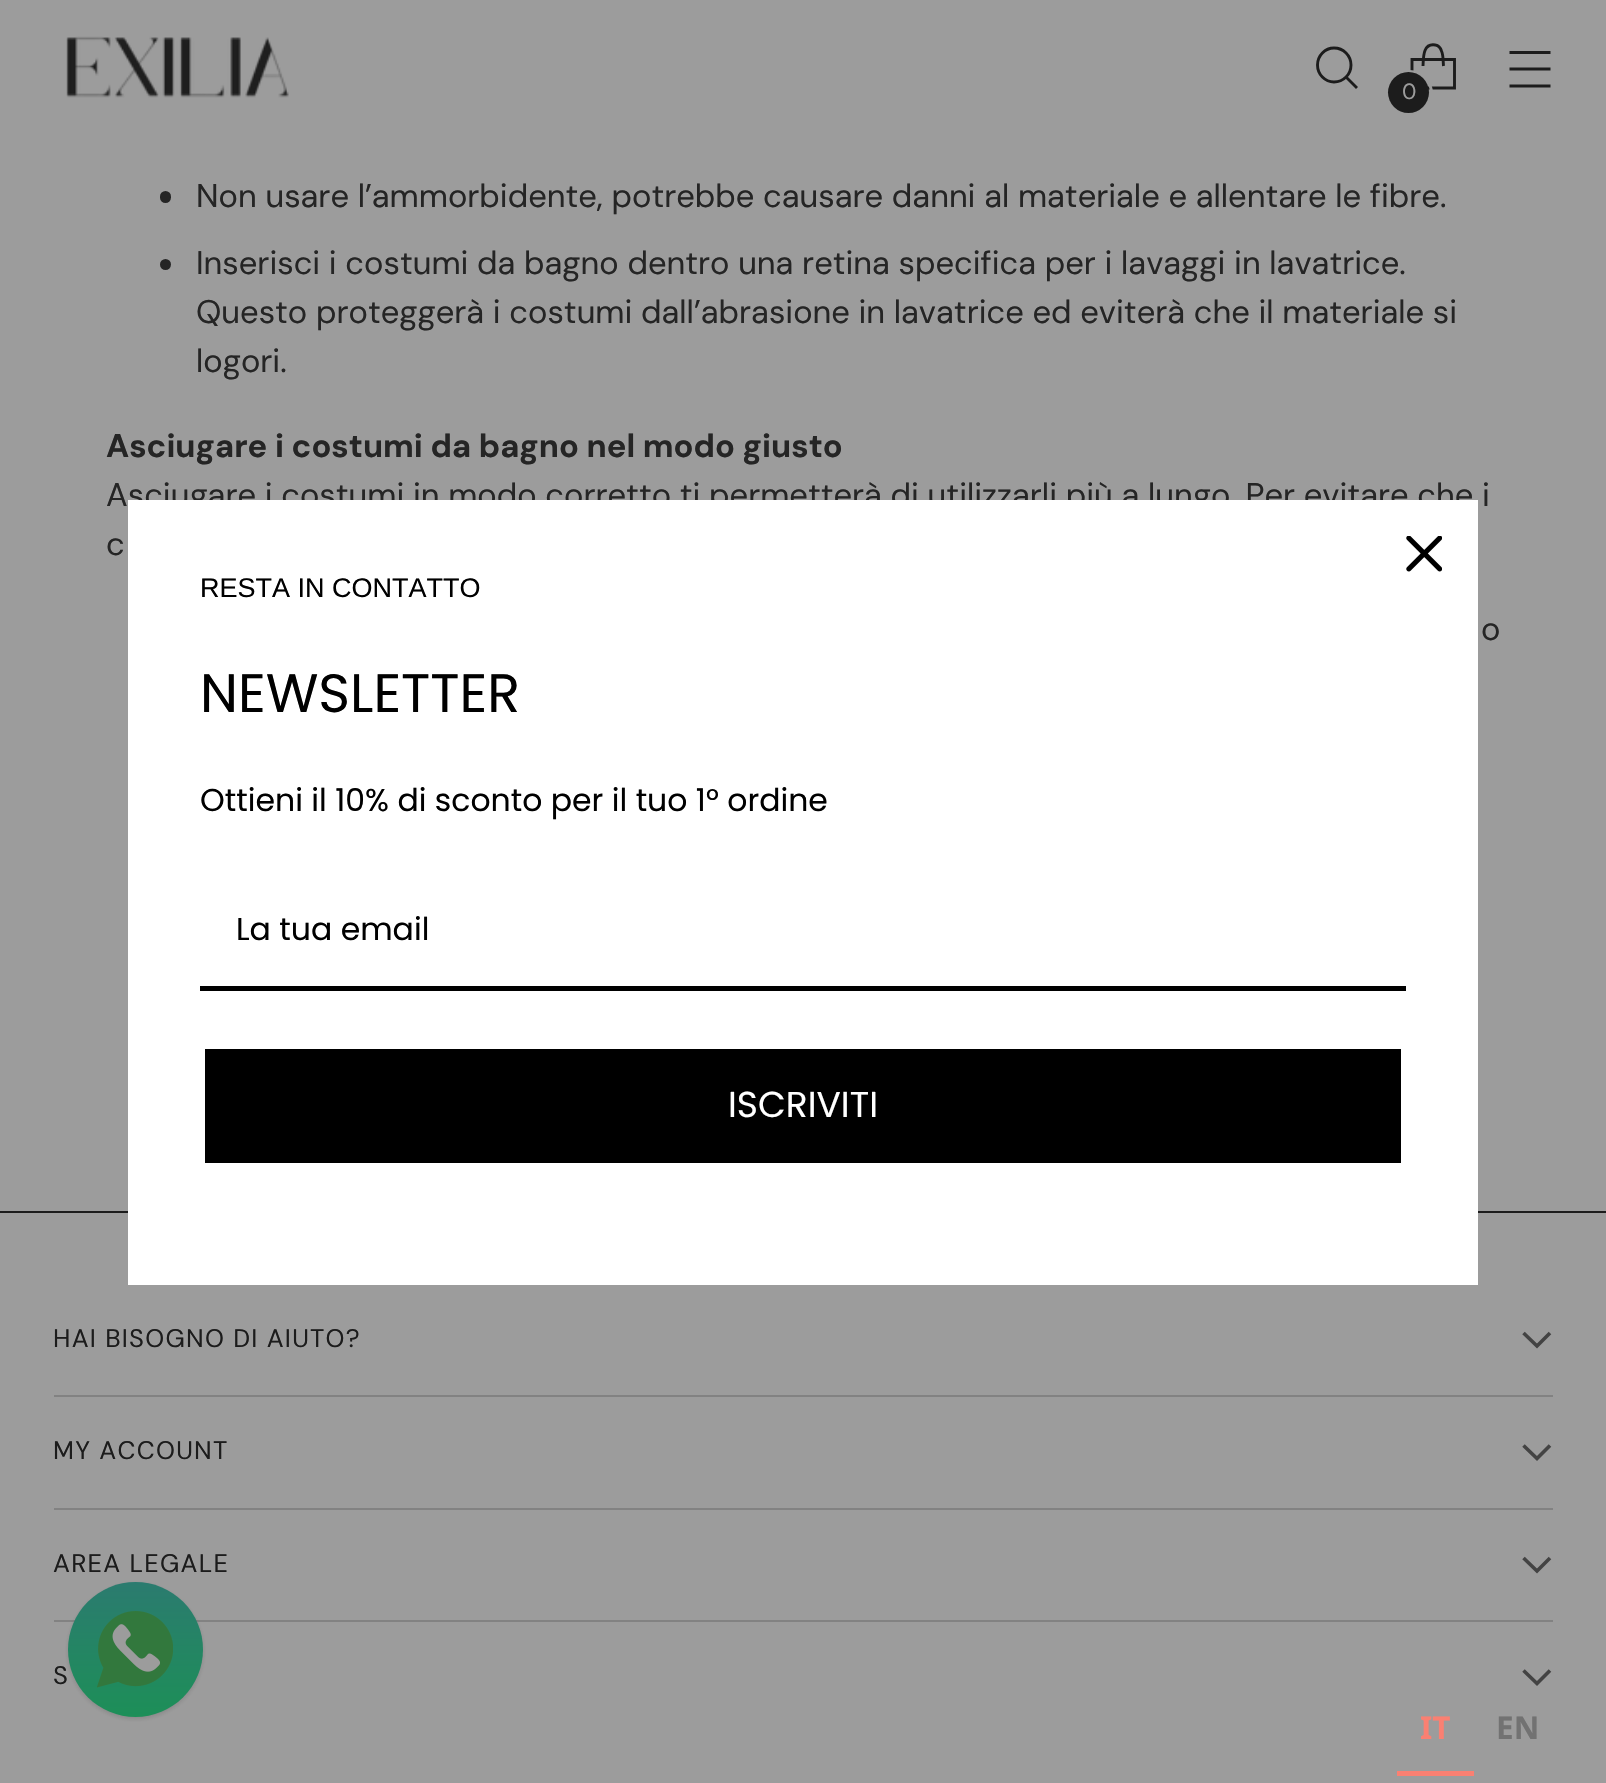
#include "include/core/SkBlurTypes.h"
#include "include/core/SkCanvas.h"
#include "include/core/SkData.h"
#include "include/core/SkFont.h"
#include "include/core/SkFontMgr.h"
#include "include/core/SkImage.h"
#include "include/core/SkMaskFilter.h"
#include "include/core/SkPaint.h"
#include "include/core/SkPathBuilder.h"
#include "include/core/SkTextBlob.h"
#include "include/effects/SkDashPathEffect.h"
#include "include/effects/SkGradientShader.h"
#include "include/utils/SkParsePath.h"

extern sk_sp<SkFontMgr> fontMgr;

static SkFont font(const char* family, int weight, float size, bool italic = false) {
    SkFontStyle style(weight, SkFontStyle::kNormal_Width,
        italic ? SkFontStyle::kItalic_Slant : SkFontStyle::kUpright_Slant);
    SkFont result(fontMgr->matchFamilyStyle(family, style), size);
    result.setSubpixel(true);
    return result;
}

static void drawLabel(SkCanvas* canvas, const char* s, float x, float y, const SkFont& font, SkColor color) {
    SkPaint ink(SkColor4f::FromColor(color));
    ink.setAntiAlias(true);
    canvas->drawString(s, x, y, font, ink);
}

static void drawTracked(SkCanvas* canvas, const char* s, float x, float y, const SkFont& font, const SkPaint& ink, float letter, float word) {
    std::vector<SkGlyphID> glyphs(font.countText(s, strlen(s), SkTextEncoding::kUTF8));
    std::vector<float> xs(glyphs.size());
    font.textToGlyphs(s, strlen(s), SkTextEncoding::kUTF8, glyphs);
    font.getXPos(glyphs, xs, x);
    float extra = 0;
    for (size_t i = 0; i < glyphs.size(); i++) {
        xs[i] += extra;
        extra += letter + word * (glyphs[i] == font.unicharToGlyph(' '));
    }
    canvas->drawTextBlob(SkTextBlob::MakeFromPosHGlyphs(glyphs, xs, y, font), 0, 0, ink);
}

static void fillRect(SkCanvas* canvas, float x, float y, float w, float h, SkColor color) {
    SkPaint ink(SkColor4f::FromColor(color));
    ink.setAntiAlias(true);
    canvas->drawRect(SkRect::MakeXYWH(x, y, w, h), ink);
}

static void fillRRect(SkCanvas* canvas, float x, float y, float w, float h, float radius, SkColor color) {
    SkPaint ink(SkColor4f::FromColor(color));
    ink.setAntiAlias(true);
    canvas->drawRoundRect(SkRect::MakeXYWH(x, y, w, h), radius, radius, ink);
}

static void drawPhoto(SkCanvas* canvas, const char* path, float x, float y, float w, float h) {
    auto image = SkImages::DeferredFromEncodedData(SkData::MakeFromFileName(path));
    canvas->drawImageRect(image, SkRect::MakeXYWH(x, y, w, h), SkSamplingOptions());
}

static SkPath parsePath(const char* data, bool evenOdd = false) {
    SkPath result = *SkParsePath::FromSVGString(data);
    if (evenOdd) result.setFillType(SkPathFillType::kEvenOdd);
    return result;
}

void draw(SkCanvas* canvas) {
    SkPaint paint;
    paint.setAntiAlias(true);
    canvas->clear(0xFF9C9C9C);
    drawPhoto(canvas, "assets/img1.png", 66, 36, 223, 62);
    paint.setStroke(true);
    paint.setStrokeWidth(2.9f);
    paint.setStrokeCap(SkPaint::kRound_Cap);
    paint.setColor(0xFF1C1C1C);
    canvas->drawPath(parsePath("M1334 82C1343.5 82 1351 74.5 1351 65C1351 55.5 1343.5 48 1334 48C1325 48 1317.5 55.5 1317.5 65C1317.5 74.5 1325 82 1334 82Z"), paint);
    paint.setStrokeCap(SkPaint::kButt_Cap);
    canvas->drawPath(parsePath("M1346 77L1357 88"), paint);
    canvas->drawPath(parsePath("M1509.5 69H1550.5M1509.5 52.5H1550.5M1509.5 86H1550.5"), paint);
    paint.setStrokeJoin(SkPaint::kBevel_Join);
    canvas->drawPath(parsePath("M1443.5 66C1443 61 1443.5 55.5 1441.5 51C1440.5 48 1438.5 45.5 1435.5 45C1422.5 42.5 1423.5 58.5 1423 66"), paint);
    paint.setStrokeJoin(SkPaint::kMiter_Join);
    canvas->drawPath(parsePath("M1454.5 88V59.5H1412V88Z"), paint);
    paint.setStrokeWidth(3);
    paint.setColor(0xFF9C9C9C);
    canvas->drawCircle(1409.5f, 93.5f, 22, paint);
    paint.setStroke(false);
    paint.setColor(0xFF1C1C1C);
    canvas->drawCircle(1408.5f, 92.5f, 20.5f, paint);
    SkFont font1 = font("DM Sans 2", 400, 22);
    drawLabel(canvas, "0", 1402, 99, font1, 0xFF9C9C9C);
    fillRRect(canvas, 160, 191, 11, 12, 5.5f, 0xFF252525);
    SkFont font2 = font("DM Sans", 400, 32.7f);
    drawLabel(canvas, "Non usare l’ammorbidente, potrebbe causare danni al materiale e allentare le fibre.", 196, 207, font2, 0xFF252525);
    paint.setColor(0xFF252525);
    canvas->drawCircle(165.5f, 264.5f, 5.5f, paint);
    drawLabel(canvas, "Inserisci i costumi da bagno dentro una retina specifica per i lavaggi in lavatrice.", 196, 274, font2, 0xFF252525);
    drawLabel(canvas, "Questo proteggerà i costumi dall’abrasione in lavatrice ed eviterà che il materiale si", 196, 323, font2, 0xFF252525);
    drawLabel(canvas, "logori.", 196, 372, font2, 0xFF252525);
    SkFont font3 = font("DM Sans", 700, 32.7f);
    drawLabel(canvas, "Asciugare i costumi da bagno nel modo giusto", 106, 457, font3, 0xFF252525);
    drawLabel(canvas, "Asciugare i costumi in modo corretto ti permetterà di utilizzarli più a lungo. Per evitare che i", 106, 506, font2, 0xFF252525);
    drawLabel(canvas, "c", 106, 555, font2, 0xFF252525);
    drawLabel(canvas, "o", 1481, 640, font2, 0xFF252525);
    fillRect(canvas, 0, 1211, 1606, 2, 0xFF1C1C1C);
    fillRect(canvas, 54, 1395, 1499, 2, 0xFF828282);
    SkFont font4 = font("DM Sans 2", 400, 25.4f);
    paint.setColor(0xFF1C1C1C);
    drawTracked(canvas, "HAI BISOGNO DI AIUTO?", 53, 1347, font4, paint, 1.25f, 0);
    paint.setStroke(true);
    paint.setStrokeWidth(3.6f);
    paint.setColor(0xFF434343);
    canvas->drawPath(parsePath("M1523.5 1333L1537 1346L1550 1333"), paint);
    fillRect(canvas, 54, 1508, 1499, 2, 0xFF828282);
    paint.setStroke(false);
    paint.setColor(0xFF1C1C1C);
    drawTracked(canvas, "MY ACCOUNT", 53, 1459, font4, paint, 1.25f, 0);
    paint.setStroke(true);
    paint.setColor(0xFF434343);
    canvas->drawPath(parsePath("M1523.5 1445.5L1537 1458.5L1550 1445.5"), paint);
    fillRect(canvas, 54, 1620, 1499, 2, 0xFF828282);
    paint.setStroke(false);
    paint.setColor(0xFF1C1C1C);
    drawTracked(canvas, "AREA LEGALE", 53, 1572, font4, paint, 1.25f, 0);
    paint.setStroke(true);
    paint.setColor(0xFF434343);
    canvas->drawPath(parsePath("M1523.5 1558L1537 1571L1550 1558"), paint);
    paint.setStroke(false);
    paint.setColor(0xFF1C1C1C);
    drawTracked(canvas, "S", 53, 1684, font4, paint, 1.25f, 0);
    paint.setStroke(true);
    paint.setColor(0xFF434343);
    canvas->drawPath(parsePath("M1523.5 1670.5L1537 1683.5L1550 1670.5"), paint);
    fillRect(canvas, 128, 500, 1350, 785, 0xFFFFFFFF);
    drawPhoto(canvas, "assets/img2.png", 1406, 536, 36, 36);
    SkFont font5 = font("Liberation Sans", 400, 27);
    drawLabel(canvas, "RESTA IN CONTATTO", 200, 597, font5, 0xFF000000);
    SkFont font6 = font("Poppins", 400, 54);
    drawLabel(canvas, "NEWSLETTER", 200, 712, font6, 0xFF000000);
    SkFont font7 = font("Poppins", 400, 31.5f);
    drawLabel(canvas, "Ottieni il 10% di sconto per il tuo 1° ordine", 200, 811, font7, 0xFF000000);
    fillRect(canvas, 200, 986, 1206, 5, 0xFF000000);
    drawLabel(canvas, "La tua email", 236, 940, font7, 0xFF000000);
    fillRect(canvas, 205, 1049, 1196, 114, 0xFF000000);
    SkFont font8 = font("Poppins", 400, 36);
    drawLabel(canvas, "ISCRIVITI", 728, 1117, font8, 0xFFFFFFFF);
    paint.setStroke(false);
    paint.setColor(0x261C1C1C);
    paint.setMaskFilter(SkMaskFilter::MakeBlur(kNormal_SkBlurStyle, 2));
    canvas->drawRoundRect(SkRect::MakeXYWH(68, 1584, 135, 135), 67.5f, 67.5f, paint);
    paint.setMaskFilter(nullptr);
    {
        const SkColor colors[] = {0xFF2B7B6F, 0xFF1D8F58};
        const float stops[] = {0, 1};
        const SkPoint ends[] = {{135, 1582}, {135, 1717}};
        paint.setShader(SkGradientShader::MakeLinear(ends, colors, stops, 2, SkTileMode::kClamp));
        paint.setAlpha(255);
    }
    canvas->drawCircle(135.5f, 1649.5f, 67.5f, paint);
    drawPhoto(canvas, "assets/img3.png", 97, 1611, 76, 77);
    SkFont font9 = font("Noto Sans", 700, 31.5f);
    drawLabel(canvas, "IT", 1420, 1739, font9, 0xFFFA8072);
    fillRect(canvas, 1397, 1771, 77, 5, 0xFFFA8072);
    drawLabel(canvas, "EN", 1496, 1739, font9, 0xFF727272);
}
